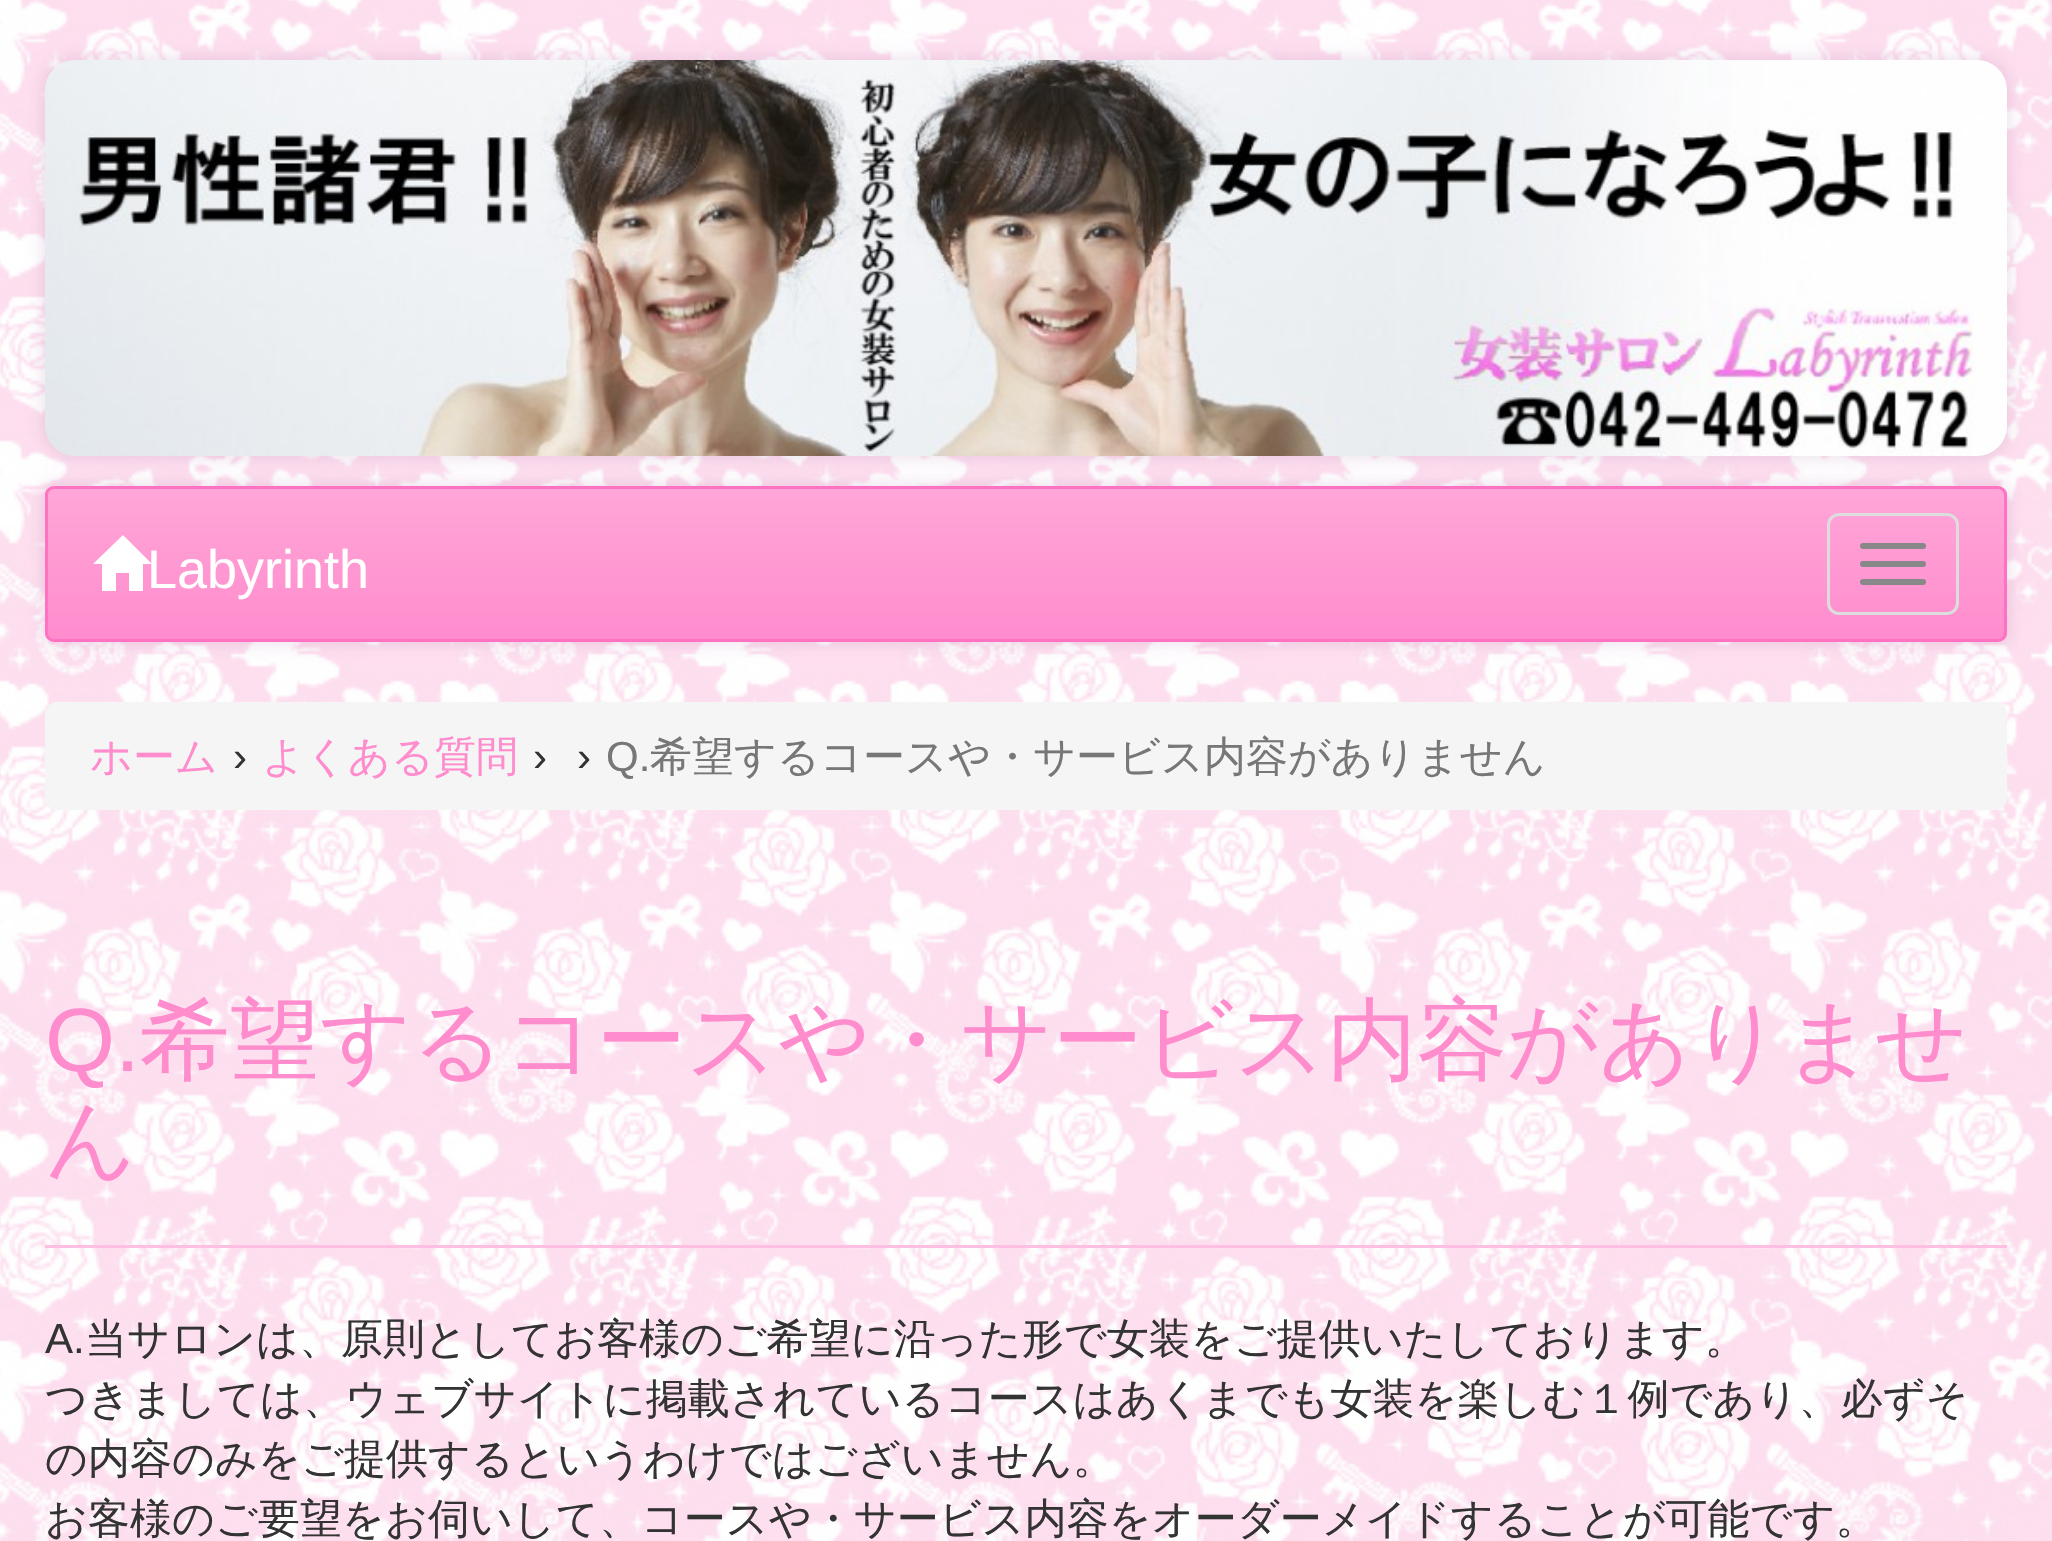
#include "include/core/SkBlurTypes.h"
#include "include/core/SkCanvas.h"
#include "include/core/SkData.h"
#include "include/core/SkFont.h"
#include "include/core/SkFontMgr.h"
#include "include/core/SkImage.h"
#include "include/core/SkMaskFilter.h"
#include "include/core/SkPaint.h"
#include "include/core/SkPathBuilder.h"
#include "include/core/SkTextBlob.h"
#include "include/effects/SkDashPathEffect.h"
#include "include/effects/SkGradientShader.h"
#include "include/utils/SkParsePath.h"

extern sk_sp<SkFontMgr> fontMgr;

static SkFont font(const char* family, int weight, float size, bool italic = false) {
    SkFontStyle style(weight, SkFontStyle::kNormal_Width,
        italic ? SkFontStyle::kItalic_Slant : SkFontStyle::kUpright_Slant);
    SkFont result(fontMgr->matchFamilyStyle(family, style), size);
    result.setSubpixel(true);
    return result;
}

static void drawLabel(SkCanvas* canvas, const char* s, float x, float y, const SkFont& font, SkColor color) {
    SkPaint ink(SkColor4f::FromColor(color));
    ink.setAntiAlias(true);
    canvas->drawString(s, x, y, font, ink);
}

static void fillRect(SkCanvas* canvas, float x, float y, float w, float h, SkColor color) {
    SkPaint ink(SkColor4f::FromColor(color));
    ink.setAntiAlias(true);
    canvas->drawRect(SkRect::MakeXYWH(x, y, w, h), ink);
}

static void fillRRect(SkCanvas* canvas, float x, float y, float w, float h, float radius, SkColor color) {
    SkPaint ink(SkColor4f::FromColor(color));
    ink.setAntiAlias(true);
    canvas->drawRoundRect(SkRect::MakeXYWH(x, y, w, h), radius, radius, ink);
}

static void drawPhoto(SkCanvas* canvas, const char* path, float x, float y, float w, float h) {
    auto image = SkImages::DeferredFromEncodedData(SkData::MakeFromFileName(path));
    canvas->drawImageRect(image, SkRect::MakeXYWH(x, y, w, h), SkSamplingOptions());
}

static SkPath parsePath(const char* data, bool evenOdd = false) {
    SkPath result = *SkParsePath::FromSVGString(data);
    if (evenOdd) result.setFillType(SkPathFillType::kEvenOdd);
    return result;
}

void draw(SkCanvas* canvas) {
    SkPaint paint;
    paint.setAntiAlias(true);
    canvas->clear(0xFFFFFFFF);
    drawPhoto(canvas, "assets/img1.png", 0, 0, 2052, 1541);
    paint.setColor(0x1A630057);
    paint.setMaskFilter(SkMaskFilter::MakeBlur(kNormal_SkBlurStyle, 7.5f));
    canvas->drawRoundRect(SkRect::MakeXYWH(42, 57, 1968, 402), 33, 33, paint);
    paint.setMaskFilter(nullptr);
    drawPhoto(canvas, "assets/img2.png", 45, 60, 1962, 396);
    paint.setMaskFilter(SkMaskFilter::MakeBlur(kNormal_SkBlurStyle, 7.5f));
    canvas->drawRoundRect(SkRect::MakeXYWH(42, 483, 1968, 162), 12, 12, paint);
    paint.setMaskFilter(nullptr);
    canvas->save();
    canvas->clipPath(parsePath("M54 486H1998C2003 486 2007 490 2007 495V633C2007 638 2003 642 1998 642H54C49 642 45 638 45 633V495C45 490 49 486 54 486Z"), true);
    {
        const SkColor colors[] = {0xFFFFA6D8, 0xFFFF8CCD};
        const float stops[] = {0, 1};
        const SkPoint ends[] = {{1026, 489}, {1026, 639}};
        paint.setShader(SkGradientShader::MakeLinear(ends, colors, stops, 2, SkTileMode::kClamp));
        paint.setAlpha(255);
    }
    canvas->drawRect(SkRect::MakeXYWH(45, 489, 1962, 150), paint);
    canvas->restore();
    paint.setStroke(true);
    paint.setStrokeWidth(3);
    paint.setShader(nullptr);
    paint.setColor(0xFFFF72C2);
    canvas->drawRoundRect(SkRect::MakeXYWH(46.5f, 487.5f, 1959, 153), 7.5f, 7.5f, paint);
    paint.setStroke(false);
    paint.setColor(0xFFFFFFFF);
    canvas->drawPath(parsePath("M93 564L123 535L152 564H143V591H129V573H116V591H102V564Z"), paint);
    SkFont font1 = font("Liberation Sans", 400, 54);
    drawLabel(canvas, "Labyrinth", 147, 588, font1, 0xFFFFFFFF);
    paint.setStroke(true);
    paint.setColor(0xFFDDDDDD);
    canvas->drawRoundRect(SkRect::MakeXYWH(1828.5f, 514.5f, 129, 99), 10.5f, 10.5f, paint);
    fillRRect(canvas, 1860, 543, 66, 6, 3, 0xFF888888);
    fillRRect(canvas, 1860, 561, 66, 6, 3, 0xFF888888);
    fillRRect(canvas, 1860, 579, 66, 6, 3, 0xFF888888);
    fillRRect(canvas, 45, 702, 1962, 108, 12, 0xFFF5F5F5);
    SkFont font2 = font("WenQuanYi Zen Hei", 500, 42);
    drawLabel(canvas, "ホーム", 90, 771, font2, 0xFFFF8CCD);
    SkFont font3 = font("Liberation Sans", 400, 42);
    drawLabel(canvas, "›", 233, 771, font3, 0xFF333333);
    drawLabel(canvas, "よくある質問", 262, 771, font2, 0xFFFF8CCD);
    drawLabel(canvas, "›", 533, 771, font3, 0xFF333333);
    drawLabel(canvas, "›", 577, 771, font3, 0xFF333333);
    drawLabel(canvas, "Q.", 606, 771, font3, 0xFF777777);
    drawLabel(canvas, "希望するコースや・サービス内容がありません", 650, 771, font2, 0xFF777777);
    fillRect(canvas, 45, 1245, 1962, 3, 0xFFFFBFE3);
    SkFont font4 = font("Liberation Sans", 400, 90);
    drawLabel(canvas, "Q.", 45, 1071, font4, 0xFFFF8CCD);
    SkFont font5 = font("WenQuanYi Zen Hei", 500, 90);
    drawLabel(canvas, "希望するコースや・サービス内容がありませ", 140, 1071, font5, 0xFFFF8CCD);
    drawLabel(canvas, "ん", 45, 1170, font5, 0xFFFF8CCD);
    drawLabel(canvas, "A.", 45, 1353, font3, 0xFF333333);
    drawLabel(canvas, "当サロンは、原則としてお客様のご希望に沿った形で女装をご提供いたしております。", 85, 1353, font2, 0xFF333333);
    drawLabel(canvas, "つきましては、ウェブサイトに掲載されているコースはあくまでも女装を楽しむ１例であり、必ずそ", 45, 1413, font2, 0xFF333333);
    drawLabel(canvas, "の内容のみをご提供するというわけではございません。", 45, 1473, font2, 0xFF333333);
    drawLabel(canvas, "お客様のご要望をお伺いして、コースや・サービス内容をオーダーメイドすることが可能です。", 45, 1533, font2, 0xFF333333);
}
